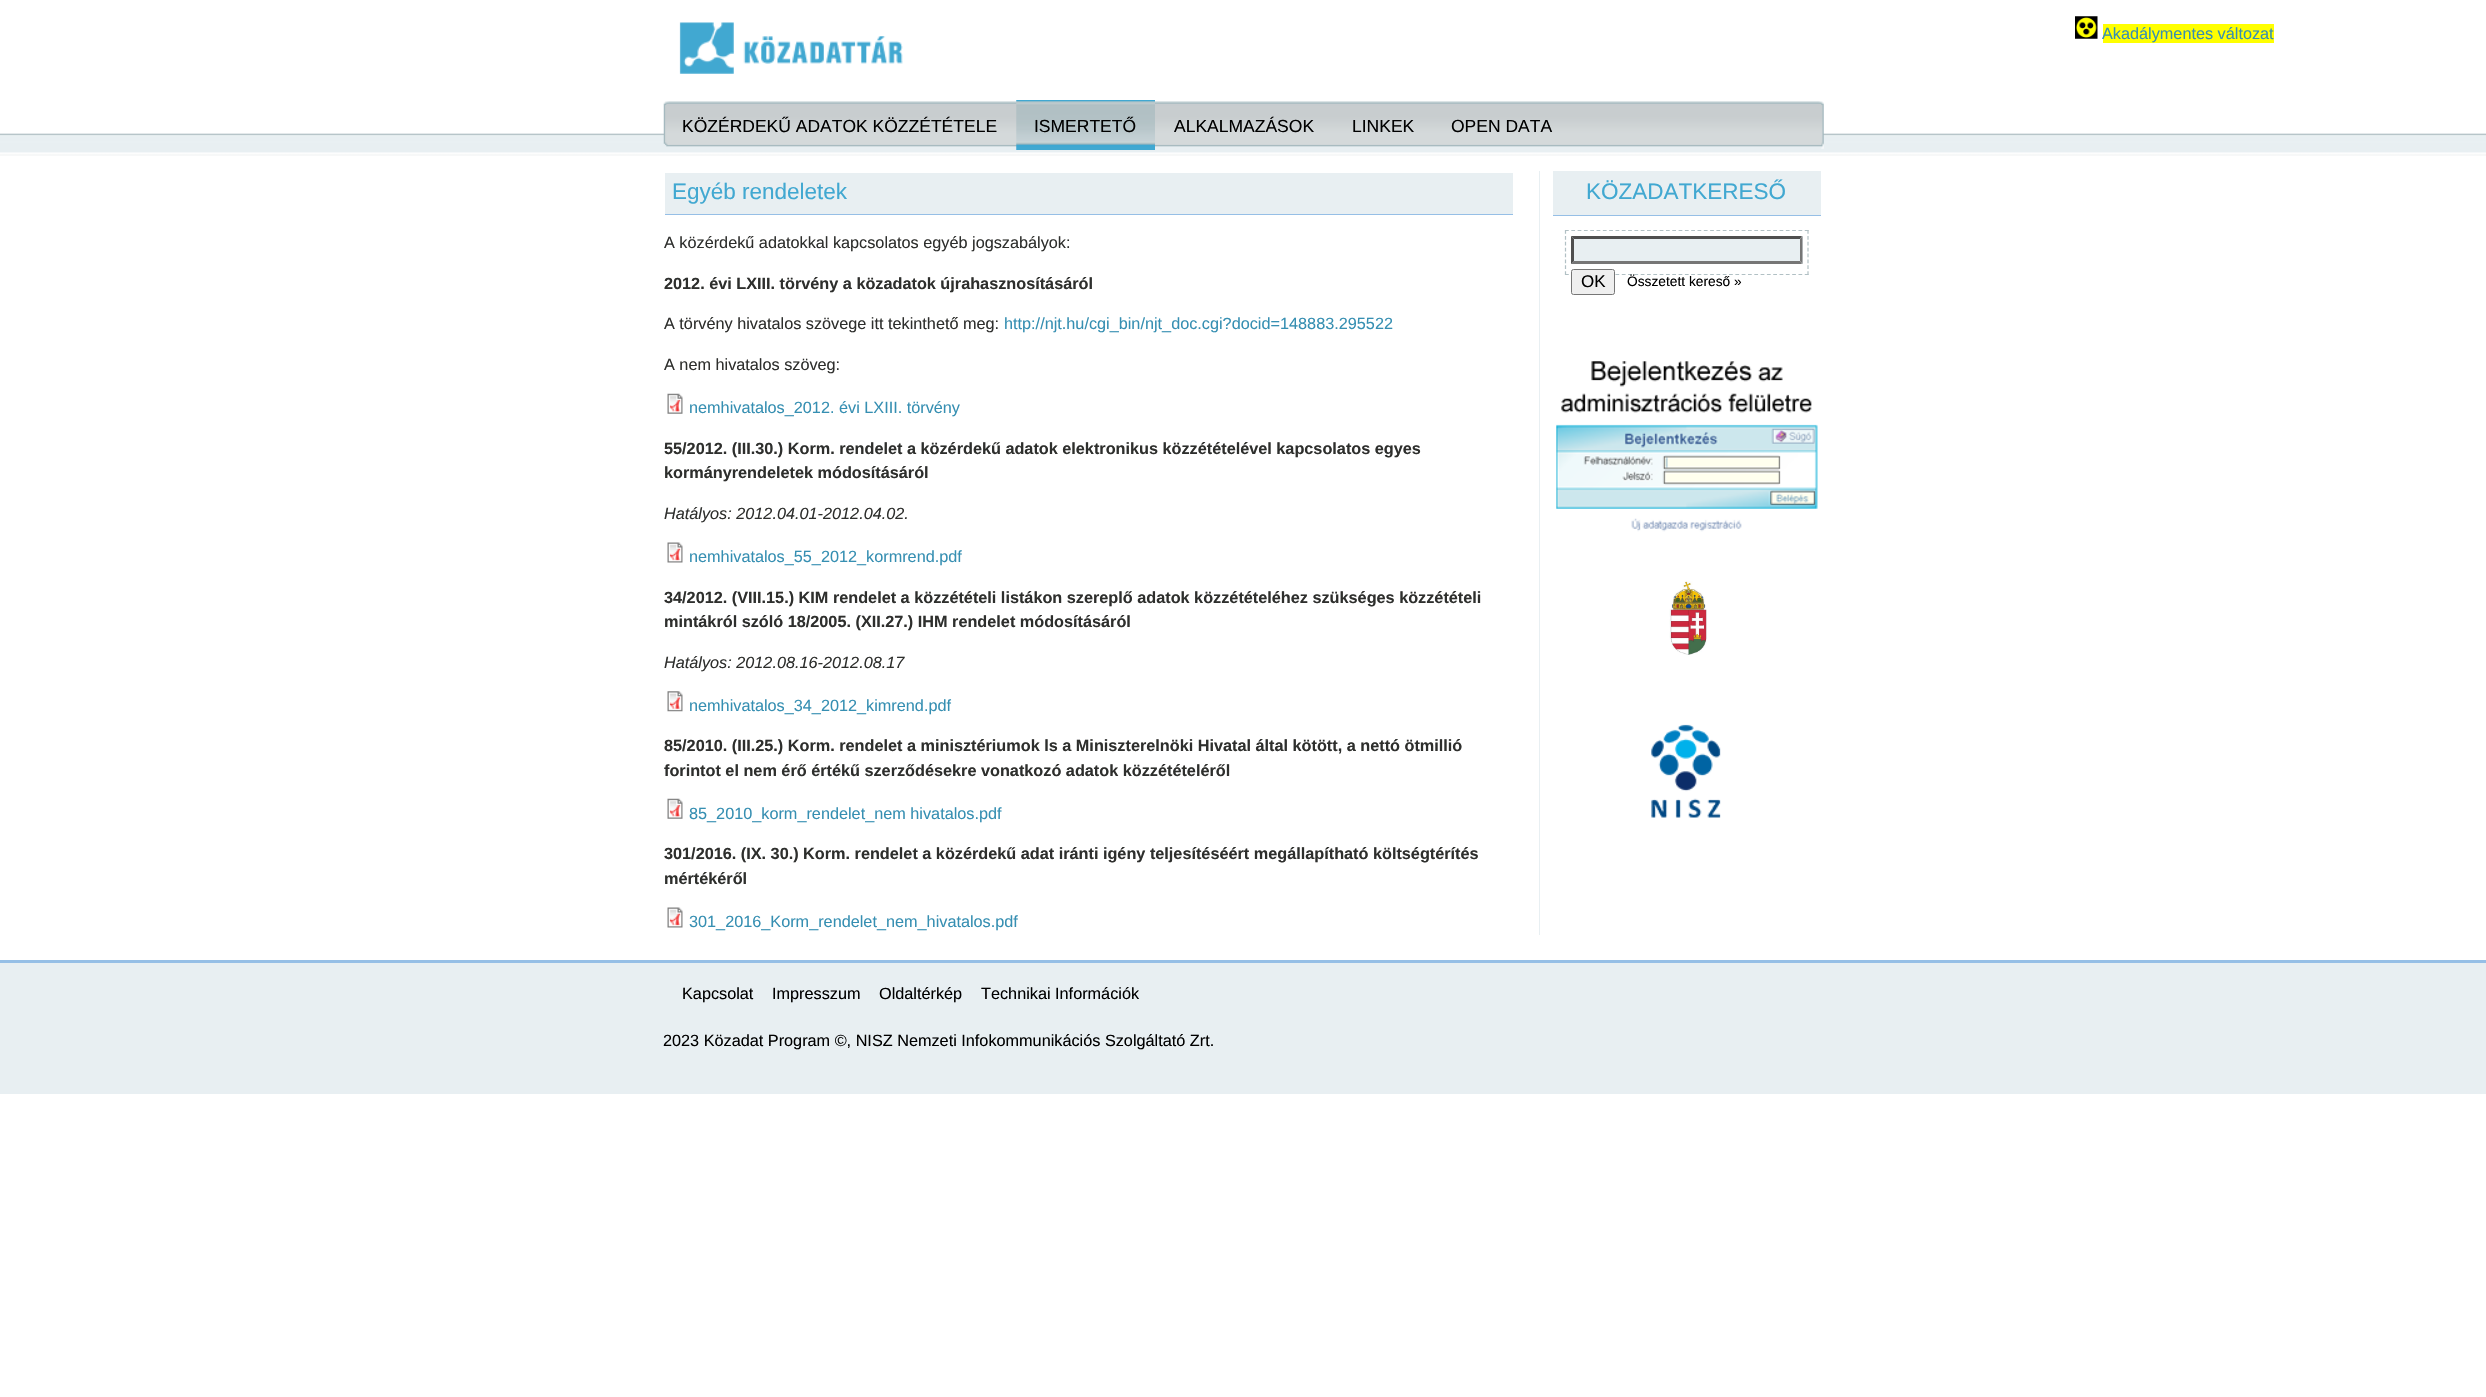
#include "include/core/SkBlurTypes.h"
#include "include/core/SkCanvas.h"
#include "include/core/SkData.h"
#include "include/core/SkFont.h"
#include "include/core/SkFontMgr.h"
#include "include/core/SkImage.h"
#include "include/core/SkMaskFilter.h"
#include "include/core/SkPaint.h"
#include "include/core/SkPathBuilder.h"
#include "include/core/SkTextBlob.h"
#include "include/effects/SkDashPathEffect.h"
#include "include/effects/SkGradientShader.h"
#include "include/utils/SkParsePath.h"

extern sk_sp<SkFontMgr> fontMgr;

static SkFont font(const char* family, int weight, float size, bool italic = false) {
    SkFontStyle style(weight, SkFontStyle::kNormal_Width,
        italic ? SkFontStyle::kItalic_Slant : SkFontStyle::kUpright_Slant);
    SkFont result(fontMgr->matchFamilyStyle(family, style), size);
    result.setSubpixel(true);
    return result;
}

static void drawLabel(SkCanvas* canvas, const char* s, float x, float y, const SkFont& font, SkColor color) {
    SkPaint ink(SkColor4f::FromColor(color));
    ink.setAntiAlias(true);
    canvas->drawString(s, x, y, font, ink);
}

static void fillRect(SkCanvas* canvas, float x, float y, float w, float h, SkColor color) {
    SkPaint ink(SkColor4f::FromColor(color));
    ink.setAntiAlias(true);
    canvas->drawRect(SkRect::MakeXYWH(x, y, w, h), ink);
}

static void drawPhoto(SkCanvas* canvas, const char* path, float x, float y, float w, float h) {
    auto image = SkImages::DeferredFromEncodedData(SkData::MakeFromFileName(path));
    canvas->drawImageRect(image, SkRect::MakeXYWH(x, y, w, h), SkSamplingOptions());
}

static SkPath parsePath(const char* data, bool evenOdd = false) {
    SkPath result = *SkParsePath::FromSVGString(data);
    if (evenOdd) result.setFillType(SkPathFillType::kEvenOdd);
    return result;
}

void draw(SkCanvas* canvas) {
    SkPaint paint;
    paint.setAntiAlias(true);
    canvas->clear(0xFFFFFFFF);
    drawPhoto(canvas, "assets/img1.png", 679, 22, 224, 52);
    drawPhoto(canvas, "assets/img2.png", 2075, 16, 23, 23);
    fillRect(canvas, 2103, 24, 171, 19, 0xFFFFFF00);
    SkFont font1 = font("Liberation Sans", 400, 16.25f);
    drawLabel(canvas, "Akadálymentes változat", 2102, 39, font1, 0xFF368FB2);
    drawPhoto(canvas, "assets/img3.png", 0, 133, 2486, 23);
    drawPhoto(canvas, "assets/img4.png", 663, 101, 1161, 48);
    SkFont font2 = font("Liberation Sans", 400, 17.5f);
    drawLabel(canvas, "KÖZÉRDEKŰ ADATOK KÖZZÉTÉTELE", 682, 132, font2, 0xFF000000);
    drawPhoto(canvas, "assets/img5.png", 1016, 100, 139, 50);
    drawLabel(canvas, "ISMERTETŐ", 1034, 132, font2, 0xFF000000);
    drawLabel(canvas, "ALKALMAZÁSOK", 1174, 132, font2, 0xFF000000);
    drawLabel(canvas, "LINKEK", 1352, 132, font2, 0xFF000000);
    drawLabel(canvas, "OPEN DATA", 1451, 132, font2, 0xFF000000);
    fillRect(canvas, 1539, 171, 1, 764, 0xFFE8EFF2);
    fillRect(canvas, 665, 173, 848, 41, 0xFFE8EFF2);
    fillRect(canvas, 665, 214, 848, 1, 0xFF96BFE6);
    SkFont font3 = font("Liberation Sans", 400, 22.5f);
    drawLabel(canvas, "Egyéb rendeletek", 672, 199, font3, 0xFF41A8D1);
    drawLabel(canvas, "A közérdekű adatokkal kapcsolatos egyéb jogszabályok:", 664, 248, font1, 0xFF2E2F2D);
    SkFont font4 = font("Liberation Sans", 700, 16.25f);
    drawLabel(canvas, "2012. évi LXIII. törvény a közadatok újrahasznosításáról", 664, 289, font4, 0xFF2E2F2D);
    drawLabel(canvas, "A törvény hivatalos szövege itt tekinthető meg:", 664, 329, font1, 0xFF2E2F2D);
    drawLabel(canvas, "http://njt.hu/cgi_bin/njt_doc.cgi?docid=148883.295522", 1004, 329, font1, 0xFF368FB2);
    drawLabel(canvas, "A nem hivatalos szöveg:", 664, 370, font1, 0xFF2E2F2D);
    drawPhoto(canvas, "assets/img6.png", 667, 393, 16, 21);
    drawLabel(canvas, "nemhivatalos_2012. évi LXIII. törvény", 689, 413, font1, 0xFF368FB2);
    drawLabel(canvas, "55/2012. (III.30.) Korm. rendelet a közérdekű adatok elektronikus közzétételével kapcsolatos egyes", 664, 454, font4, 0xFF2E2F2D);
    drawLabel(canvas, "kormányrendeletek módosításáról", 664, 478, font4, 0xFF2E2F2D);
    SkFont font5 = font("Liberation Sans", 400, 16.25f, true);
    drawLabel(canvas, "Hatályos: 2012.04.01-2012.04.02.", 664, 519, font5, 0xFF2E2F2D);
    drawPhoto(canvas, "assets/img7.png", 667, 542, 16, 21);
    drawLabel(canvas, "nemhivatalos_55_2012_kormrend.pdf", 689, 562, font1, 0xFF368FB2);
    drawLabel(canvas, "34/2012. (VIII.15.) KIM rendelet a közzétételi listákon szereplő adatok közzétételéhez szükséges közzétételi", 664, 603, font4, 0xFF2E2F2D);
    drawLabel(canvas, "mintákról szóló 18/2005. (XII.27.) IHM rendelet módosításáról", 664, 627, font4, 0xFF2E2F2D);
    drawLabel(canvas, "Hatályos: 2012.08.16-2012.08.17", 664, 668, font5, 0xFF2E2F2D);
    drawPhoto(canvas, "assets/img8.png", 667, 691, 16, 21);
    drawLabel(canvas, "nemhivatalos_34_2012_kimrend.pdf", 689, 711, font1, 0xFF368FB2);
    drawLabel(canvas, "85/2010. (III.25.) Korm. rendelet a minisztériumok ls a Miniszterelnöki Hivatal által kötött, a nettó ötmillió", 664, 751, font4, 0xFF2E2F2D);
    drawLabel(canvas, "forintot el nem érő értékű szerződésekre vonatkozó adatok közzétételéről", 664, 776, font4, 0xFF2E2F2D);
    drawPhoto(canvas, "assets/img6.png", 667, 798, 16, 21);
    drawLabel(canvas, "85_2010_korm_rendelet_nem hivatalos.pdf", 689, 819, font1, 0xFF368FB2);
    drawLabel(canvas, "301/2016. (IX. 30.) Korm. rendelet a közérdekű adat iránti igény teljesítéséért megállapítható költségtérítés", 664, 859, font4, 0xFF2E2F2D);
    drawLabel(canvas, "mértékéről", 664, 884, font4, 0xFF2E2F2D);
    drawPhoto(canvas, "assets/img7.png", 667, 907, 16, 21);
    drawLabel(canvas, "301_2016_Korm_rendelet_nem_hivatalos.pdf", 689, 927, font1, 0xFF368FB2);
    fillRect(canvas, 1553, 171, 268, 44, 0xFFE8EFF2);
    fillRect(canvas, 1553, 215, 268, 1, 0xFF96BFE6);
    drawLabel(canvas, "KÖZADATKERESŐ", 1586, 199, font3, 0xFF41A8D1);
    paint.setStroke(true);
    paint.setStrokeWidth(1.2f);
    paint.setColor(0xFFB1C0C4);
    paint.setPathEffect(SkDashPathEffect::Make({{3.75f, 2.56f}}, 0));
    canvas->drawPath(parsePath("M1565 230.5H1809"), paint);
    paint.setPathEffect(nullptr);
    paint.setPathEffect(SkDashPathEffect::Make({{3.75f, 2.14f}}, 0));
    canvas->drawPath(parsePath("M1808 230V275"), paint);
    paint.setPathEffect(nullptr);
    paint.setPathEffect(SkDashPathEffect::Make({{3.75f, 2.56f}}, 0));
    canvas->drawPath(parsePath("M1565 274.5H1809"), paint);
    paint.setPathEffect(nullptr);
    paint.setPathEffect(SkDashPathEffect::Make({{3.75f, 2.14f}}, 0));
    canvas->drawPath(parsePath("M1565.5 230V275"), paint);
    paint.setPathEffect(nullptr);
    fillRect(canvas, 1571, 236, 232, 28, 0xFFE8EFF2);
    paint.setStroke(false);
    paint.setColor(0xFF4F4F4F);
    canvas->drawPath(parsePath("M1571 236H1802L1800 239H1574Z"), paint);
    paint.setColor(0xFF767676);
    canvas->drawPath(parsePath("M1802.5 236V264L1800 261V239Z"), paint);
    canvas->drawPath(parsePath("M1802 264H1571L1574 261H1800Z"), paint);
    paint.setColor(0xFF4F4F4F);
    canvas->drawPath(parsePath("M1571 264V236L1574 239V261Z"), paint);
    paint.setColor(0xFFEFEFEF);
    canvas->drawRoundRect(SkRect::MakeXYWH(1571.5f, 269.5f, 43, 25), 2, 2, paint);
    paint.setStroke(true);
    paint.setStrokeWidth(1);
    paint.setColor(0xFF767676);
    canvas->drawRoundRect(SkRect::MakeXYWH(1571.5f, 269.5f, 43, 25), 2, 2, paint);
    SkFont font6 = font("Liberation Sans", 400, 17);
    drawLabel(canvas, "OK", 1581, 287, font6, 0xFF000000);
    SkFont font7 = font("Liberation Sans", 400, 13.75f);
    drawLabel(canvas, "Összetett kereső »", 1627, 286, font7, 0xFF000000);
    drawPhoto(canvas, "assets/img9.png", 1556, 361, 262, 171);
    drawPhoto(canvas, "assets/img10.png", 1669, 581, 38, 74);
    drawPhoto(canvas, "assets/img11.png", 1651, 724, 70, 94);
    fillRect(canvas, 0, 963, 2486, 131, 0xFFE8EFF2);
    fillRect(canvas, 0, 960, 2486, 3, 0xFF96BFE6);
    drawLabel(canvas, "Kapcsolat", 682, 999, font1, 0xFF000000);
    drawLabel(canvas, "Impresszum", 772, 999, font1, 0xFF000000);
    drawLabel(canvas, "Oldaltérkép", 879, 999, font1, 0xFF000000);
    drawLabel(canvas, "Technikai Információk", 981, 999, font1, 0xFF000000);
    drawLabel(canvas, "2023 Közadat Program ©, NISZ Nemzeti Infokommunikációs Szolgáltató Zrt.", 663, 1046, font1, 0xFF000000);
}
